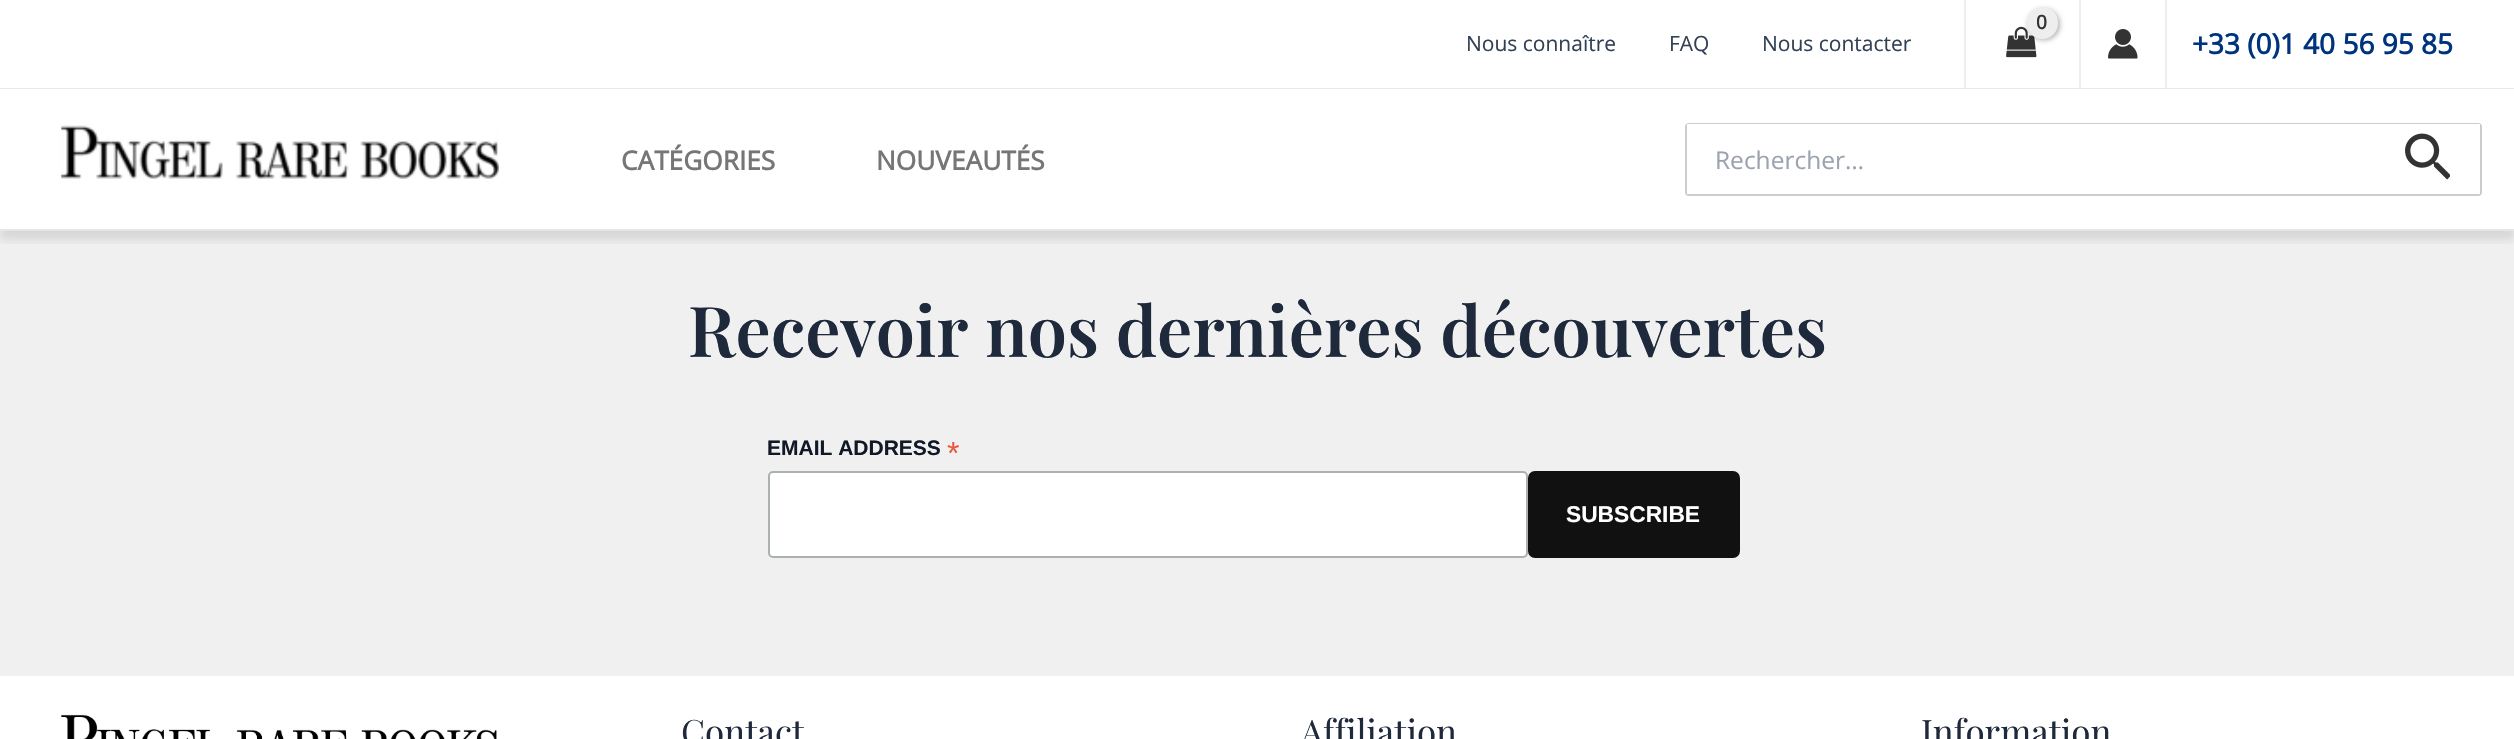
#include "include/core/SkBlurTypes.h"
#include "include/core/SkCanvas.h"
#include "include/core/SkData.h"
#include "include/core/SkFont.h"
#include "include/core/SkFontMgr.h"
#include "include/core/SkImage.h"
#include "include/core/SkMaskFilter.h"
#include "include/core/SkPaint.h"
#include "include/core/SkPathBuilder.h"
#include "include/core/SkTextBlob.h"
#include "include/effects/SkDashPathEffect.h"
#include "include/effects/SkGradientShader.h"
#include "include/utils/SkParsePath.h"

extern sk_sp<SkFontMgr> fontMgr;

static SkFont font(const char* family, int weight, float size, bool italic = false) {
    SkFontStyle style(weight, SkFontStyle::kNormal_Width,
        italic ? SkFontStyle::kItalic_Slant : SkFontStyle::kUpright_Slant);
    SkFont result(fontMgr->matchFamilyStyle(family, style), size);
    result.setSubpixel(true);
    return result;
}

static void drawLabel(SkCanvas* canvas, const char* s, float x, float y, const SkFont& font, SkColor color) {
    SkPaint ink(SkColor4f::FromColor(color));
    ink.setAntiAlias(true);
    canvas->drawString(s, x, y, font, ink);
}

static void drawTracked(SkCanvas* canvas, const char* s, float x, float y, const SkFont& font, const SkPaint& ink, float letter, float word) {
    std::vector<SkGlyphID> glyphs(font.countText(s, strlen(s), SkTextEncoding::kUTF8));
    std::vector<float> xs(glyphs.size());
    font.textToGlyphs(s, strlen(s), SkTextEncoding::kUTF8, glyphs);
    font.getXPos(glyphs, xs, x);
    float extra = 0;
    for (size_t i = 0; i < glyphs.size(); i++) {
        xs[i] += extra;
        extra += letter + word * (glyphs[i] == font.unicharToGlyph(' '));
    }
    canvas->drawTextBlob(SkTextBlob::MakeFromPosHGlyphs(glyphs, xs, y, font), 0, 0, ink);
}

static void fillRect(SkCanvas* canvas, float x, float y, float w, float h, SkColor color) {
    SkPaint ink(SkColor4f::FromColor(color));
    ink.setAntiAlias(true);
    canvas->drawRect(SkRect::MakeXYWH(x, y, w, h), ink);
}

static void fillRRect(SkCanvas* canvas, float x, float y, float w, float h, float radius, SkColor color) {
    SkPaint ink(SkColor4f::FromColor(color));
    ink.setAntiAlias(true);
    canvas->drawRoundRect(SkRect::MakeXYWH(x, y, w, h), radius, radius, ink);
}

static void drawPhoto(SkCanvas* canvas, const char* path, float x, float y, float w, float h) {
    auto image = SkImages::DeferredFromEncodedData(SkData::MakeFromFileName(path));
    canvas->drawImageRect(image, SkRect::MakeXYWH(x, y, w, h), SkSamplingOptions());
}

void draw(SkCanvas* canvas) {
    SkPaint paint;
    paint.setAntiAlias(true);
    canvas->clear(0xFFFFFFFF);
    fillRect(canvas, 0, 231, 2514, 445, 0xFFF0F0F0);
    canvas->save();
    canvas->clipRect(SkRect::MakeXYWH(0, 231, 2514, 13));
    paint.setColor(0x1A000000);
    paint.setMaskFilter(SkMaskFilter::MakeBlur(kNormal_SkBlurStyle, 4.5f));
    canvas->drawRect(SkRect::MakeXYWH(0, 9, 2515, 231), paint);
    paint.setMaskFilter(nullptr);
    canvas->restore();
    fillRect(canvas, 0, 88, 2514, 1, 0xFFEAEAEA);
    fillRect(canvas, 2079, 0, 2, 88, 0xFFEEEEEE);
    drawPhoto(canvas, "assets/img1.png", 2006, 26, 31, 32);
    paint.setColor(0x4D000000);
    paint.setMaskFilter(SkMaskFilter::MakeBlur(kNormal_SkBlurStyle, 2.5f));
    canvas->drawRoundRect(SkRect::MakeXYWH(2028, 9, 32, 31), 15.5f, 15.5f, paint);
    paint.setMaskFilter(nullptr);
    fillRRect(canvas, 2027, 7, 31, 32, 15.5f, 0xFFEEEEEE);
    SkFont font1 = font("Open Sans", 700, 19);
    paint.setColor(0xFF333333);
    drawTracked(canvas, "0", 2036, 29, font1, paint, -1, 0);
    fillRect(canvas, 2165, 0, 2, 88, 0xFFEEEEEE);
    drawPhoto(canvas, "assets/img2.png", 2108, 29, 30, 30);
    fillRect(canvas, 1964, 0, 2, 88, 0xFFEEEEEE);
    SkFont font2 = font("Open Sans", 400, 21);
    drawLabel(canvas, "Nous connaître", 1466, 51, font2, 0xFF334155);
    drawLabel(canvas, "FAQ", 1669, 51, font2, 0xFF334155);
    drawLabel(canvas, "Nous contacter", 1762, 51, font2, 0xFF334155);
    SkFont font3 = font("Open Sans", 700, 28);
    drawLabel(canvas, "+33 (0)1 40 56 95 85", 2192, 54, font3, 0xFF00337E);
    fillRect(canvas, 0, 229, 2514, 2, 0xFFE6E6E6);
    drawPhoto(canvas, "assets/img3.png", 61, 125, 438, 54);
    SkFont font4 = font("Open Sans", 700, 26.25f);
    drawLabel(canvas, "CATÉGORIES", 621, 170, font4, 0xFF767676);
    drawLabel(canvas, "NOUVEAUTÉS", 876, 170, font4, 0xFF767676);
    paint.setStroke(true);
    paint.setStrokeWidth(2);
    paint.setColor(0xFFCCCCCC);
    canvas->drawRoundRect(SkRect::MakeXYWH(1686, 124, 795, 71), 3, 3, paint);
    fillRect(canvas, 1687, 124, 793, 70, 0xFFFFFFFF);
    SkFont font5 = font("Open Sans", 400, 24.5f);
    drawLabel(canvas, "Rechercher…", 1715, 169, font5, 0xFF9CA3AF);
    drawPhoto(canvas, "assets/img4.png", 2405, 133, 45, 47);
    SkFont font6 = font("Playfair Display", 600, 70);
    drawLabel(canvas, "Recevoir nos dernières découvertes", 688, 357, font6, 0xFF1E293B);
    SkFont font7 = font("Liberation Sans", 700, 21);
    drawLabel(canvas, "EMAIL ADDRESS", 767, 455, font7, 0xFF111827);
    SkFont font8 = font("Liberation Sans", 400, 32);
    drawLabel(canvas, "*", 947, 464, font8, 0xFFE85C41);
    paint.setStroke(false);
    paint.setColor(0xFFFFFFFF);
    canvas->drawRoundRect(SkRect::MakeXYWH(769, 472, 758, 85), 4, 4, paint);
    paint.setStroke(true);
    paint.setColor(0xFFABB0B2);
    canvas->drawRoundRect(SkRect::MakeXYWH(769, 472, 758, 85), 4, 4, paint);
    fillRRect(canvas, 1528, 471, 212, 87, 7, 0xFF111111);
    SkFont font9 = font("Liberation Sans", 700, 22.75f);
    drawLabel(canvas, "SUBSCRIBE", 1566, 522, font9, 0xFFFFFFFF);
    drawPhoto(canvas, "assets/img5.png", 61, 714, 436, 25);
    SkFont font10 = font("Playfair Display", 400, 35);
    drawLabel(canvas, "Contact", 681, 745, font10, 0xFF1E293B);
    drawLabel(canvas, "Affiliation", 1301, 745, font10, 0xFF1E293B);
    drawLabel(canvas, "Information", 1921, 745, font10, 0xFF1E293B);
}
